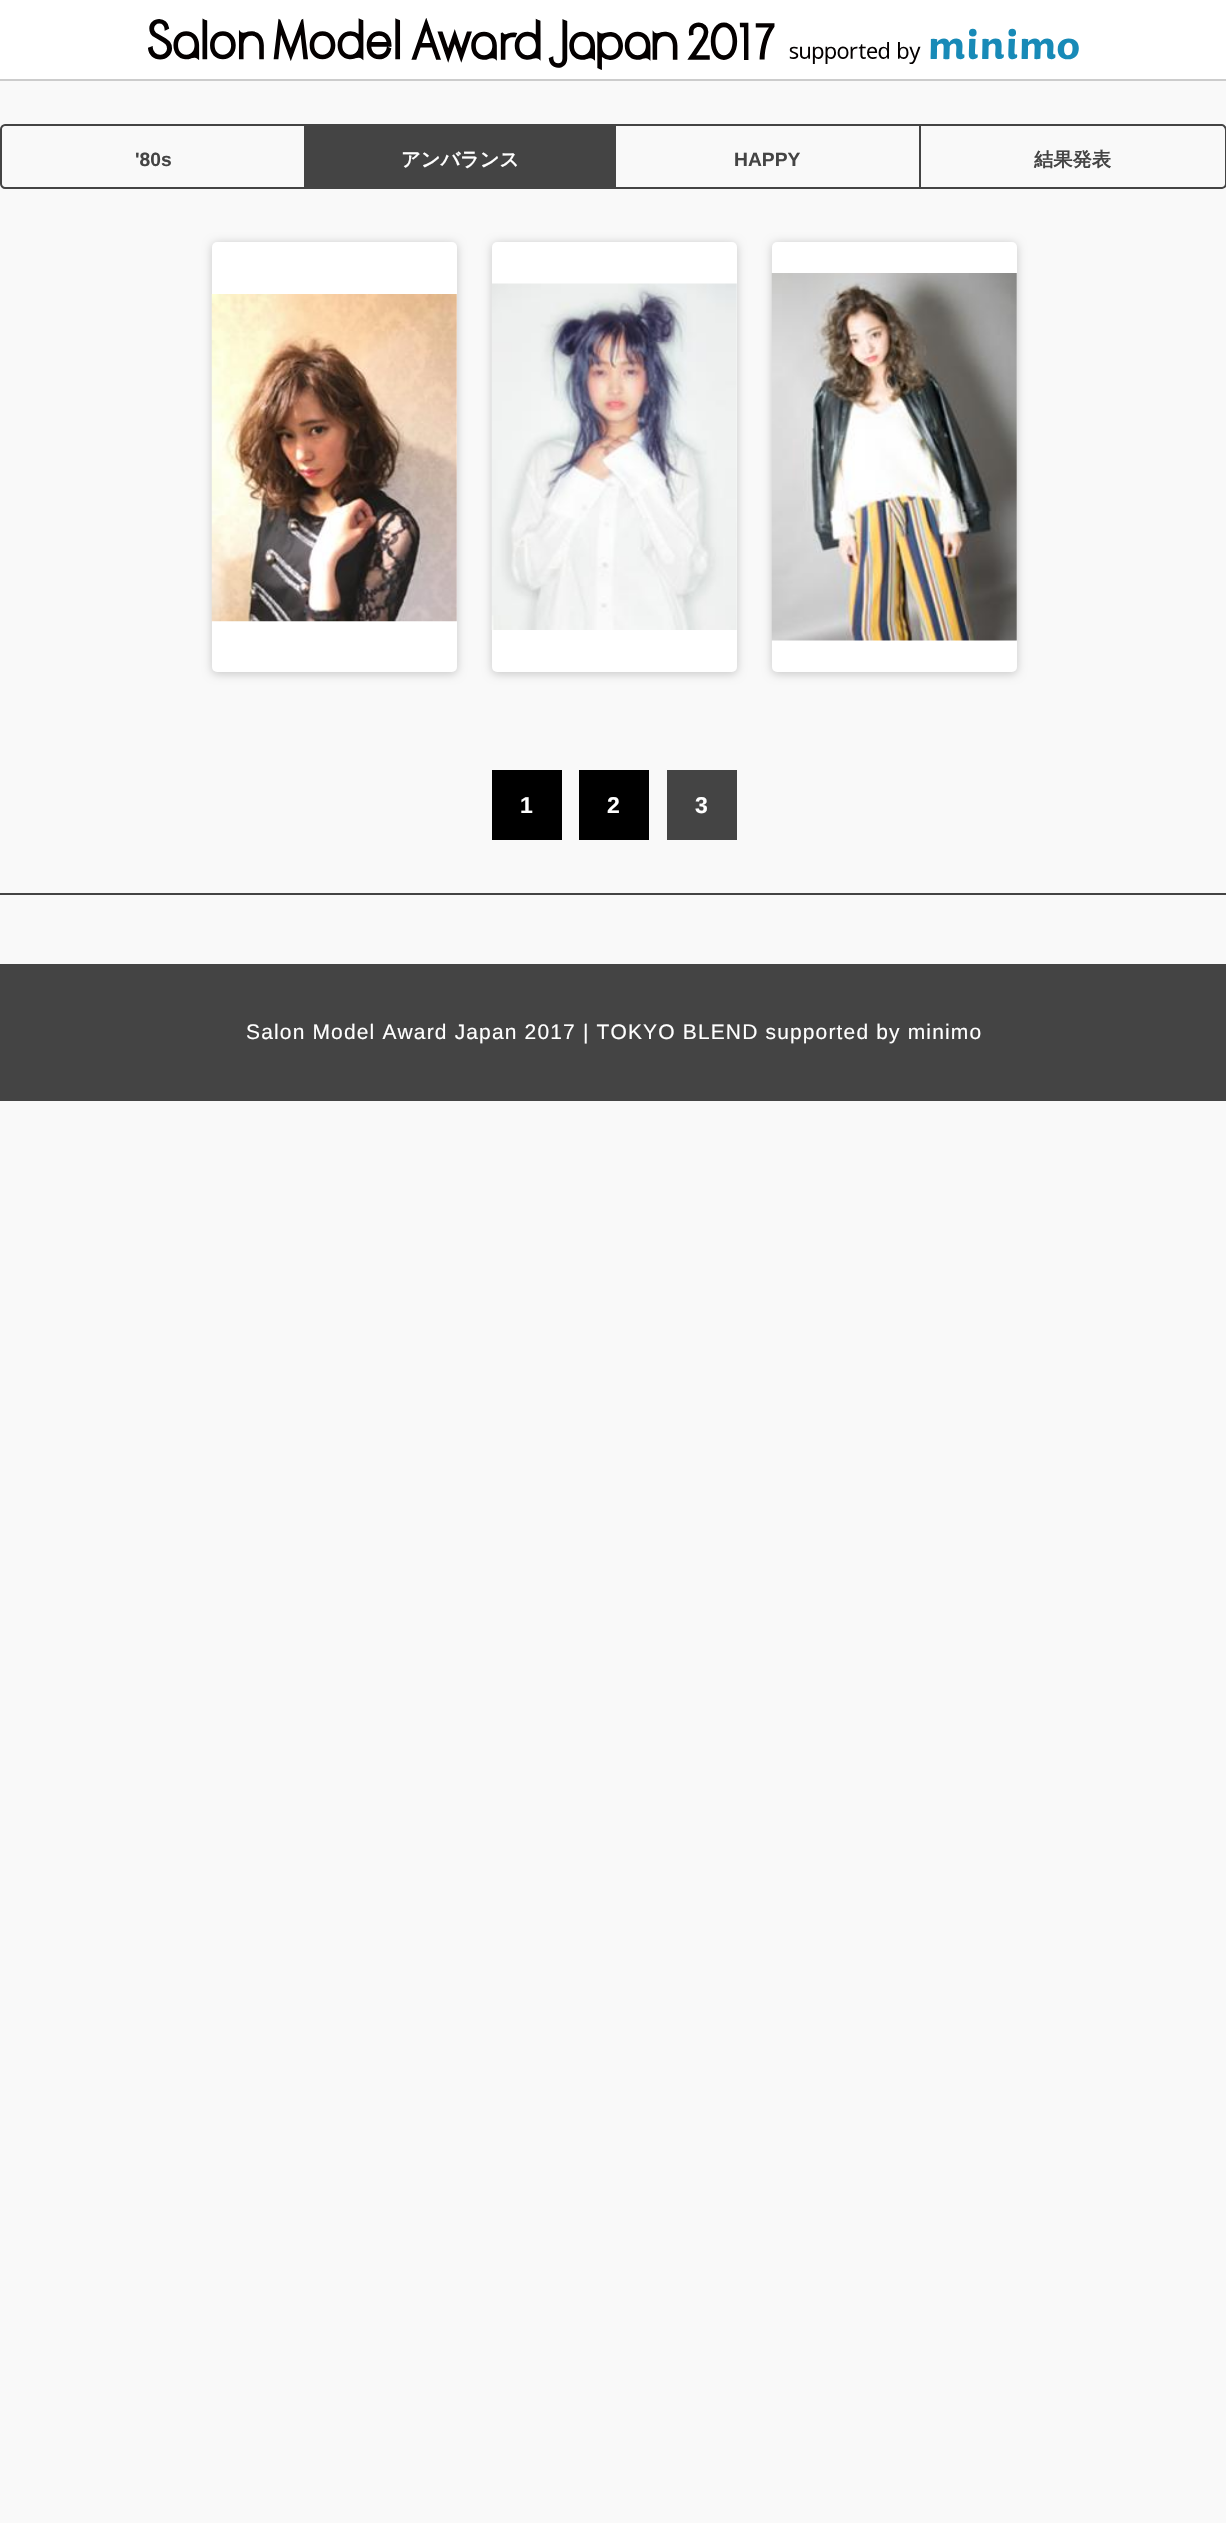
#include "include/core/SkBlurTypes.h"
#include "include/core/SkCanvas.h"
#include "include/core/SkData.h"
#include "include/core/SkFont.h"
#include "include/core/SkFontMgr.h"
#include "include/core/SkImage.h"
#include "include/core/SkMaskFilter.h"
#include "include/core/SkPaint.h"
#include "include/core/SkPathBuilder.h"
#include "include/core/SkTextBlob.h"
#include "include/effects/SkDashPathEffect.h"
#include "include/effects/SkGradientShader.h"
#include "include/utils/SkParsePath.h"

extern sk_sp<SkFontMgr> fontMgr;

static SkFont font(const char* family, int weight, float size, bool italic = false) {
    SkFontStyle style(weight, SkFontStyle::kNormal_Width,
        italic ? SkFontStyle::kItalic_Slant : SkFontStyle::kUpright_Slant);
    SkFont result(fontMgr->matchFamilyStyle(family, style), size);
    result.setSubpixel(true);
    return result;
}

static void drawLabel(SkCanvas* canvas, const char* s, float x, float y, const SkFont& font, SkColor color) {
    SkPaint ink(SkColor4f::FromColor(color));
    ink.setAntiAlias(true);
    canvas->drawString(s, x, y, font, ink);
}

static void drawTracked(SkCanvas* canvas, const char* s, float x, float y, const SkFont& font, const SkPaint& ink, float letter, float word) {
    std::vector<SkGlyphID> glyphs(font.countText(s, strlen(s), SkTextEncoding::kUTF8));
    std::vector<float> xs(glyphs.size());
    font.textToGlyphs(s, strlen(s), SkTextEncoding::kUTF8, glyphs);
    font.getXPos(glyphs, xs, x);
    float extra = 0;
    for (size_t i = 0; i < glyphs.size(); i++) {
        xs[i] += extra;
        extra += letter + word * (glyphs[i] == font.unicharToGlyph(' '));
    }
    canvas->drawTextBlob(SkTextBlob::MakeFromPosHGlyphs(glyphs, xs, y, font), 0, 0, ink);
}

static void fillRect(SkCanvas* canvas, float x, float y, float w, float h, SkColor color) {
    SkPaint ink(SkColor4f::FromColor(color));
    ink.setAntiAlias(true);
    canvas->drawRect(SkRect::MakeXYWH(x, y, w, h), ink);
}

static void fillRRect(SkCanvas* canvas, float x, float y, float w, float h, float radius, SkColor color) {
    SkPaint ink(SkColor4f::FromColor(color));
    ink.setAntiAlias(true);
    canvas->drawRoundRect(SkRect::MakeXYWH(x, y, w, h), radius, radius, ink);
}

static void drawPhoto(SkCanvas* canvas, const char* path, float x, float y, float w, float h) {
    auto image = SkImages::DeferredFromEncodedData(SkData::MakeFromFileName(path));
    canvas->drawImageRect(image, SkRect::MakeXYWH(x, y, w, h), SkSamplingOptions());
}

static SkPath parsePath(const char* data, bool evenOdd = false) {
    SkPath result = *SkParsePath::FromSVGString(data);
    if (evenOdd) result.setFillType(SkPathFillType::kEvenOdd);
    return result;
}

void draw(SkCanvas* canvas) {
    SkPaint paint;
    paint.setAntiAlias(true);
    canvas->clear(0xFFF9F9F9);
    fillRect(canvas, 0, 0, 1226, 79, 0xFFFFFFFF);
    fillRect(canvas, 0, 79, 1226, 2, 0xFFCCCCCC);
    drawPhoto(canvas, "assets/img1.png", 148, 18, 931, 52);
    paint.setStroke(true);
    paint.setStrokeWidth(2);
    paint.setColor(0xFF444444);
    canvas->drawPath(parsePath("M5 125H305V188H5C3 188 1 186 1 184V129C1 127 3 125 5 125Z"), paint);
    SkFont font1 = font("Liberation Sans", 700, 19.25f);
    drawLabel(canvas, "'80s", 135, 166, font1, 0xFF444444);
    fillRect(canvas, 306, 124, 308, 65, 0xFF444444);
    SkFont font2 = font("WenQuanYi Zen Hei", 700, 19.25f);
    drawLabel(canvas, "アンバランス", 401, 166, font2, 0xFFFFFFFF);
    canvas->drawRect(SkRect::MakeXYWH(615, 125, 305, 63), paint);
    drawLabel(canvas, "HAPPY", 734, 166, font1, 0xFF444444);
    paint.setStroke(false);
    canvas->drawPath(parsePath("M920 124H1222C1224 124 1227 127 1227 130V184C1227 187 1224 189 1222 189H920ZM920 126H1222C1223 126 1225 128 1225 130V184C1225 186 1223 187 1222 187H920Z", true), paint);
    drawLabel(canvas, "結果発表", 1034, 166, font2, 0xFF444444);
    paint.setColor(0x33000000);
    paint.setMaskFilter(SkMaskFilter::MakeBlur(kNormal_SkBlurStyle, 5));
    canvas->drawRoundRect(SkRect::MakeXYWH(212, 243, 245, 431), 5, 5, paint);
    paint.setMaskFilter(nullptr);
    fillRRect(canvas, 212, 242, 245, 430, 5, 0xFFFFFFFF);
    drawPhoto(canvas, "assets/img2.png", 211, 294, 246, 328);
    paint.setMaskFilter(SkMaskFilter::MakeBlur(kNormal_SkBlurStyle, 5));
    canvas->drawRoundRect(SkRect::MakeXYWH(492, 243, 245, 431), 5, 5, paint);
    paint.setMaskFilter(nullptr);
    fillRRect(canvas, 492, 242, 245, 430, 5, 0xFFFFFFFF);
    drawPhoto(canvas, "assets/img3.png", 491, 283, 246, 347);
    paint.setMaskFilter(SkMaskFilter::MakeBlur(kNormal_SkBlurStyle, 5));
    canvas->drawRoundRect(SkRect::MakeXYWH(772, 243, 245, 431), 5, 5, paint);
    paint.setMaskFilter(nullptr);
    fillRRect(canvas, 772, 242, 245, 430, 5, 0xFFFFFFFF);
    drawPhoto(canvas, "assets/img4.png", 771, 273, 246, 368);
    fillRect(canvas, 0, 893, 1226, 2, 0xFF444444);
    fillRect(canvas, 492, 770, 70, 70, 0xFF000000);
    SkFont font3 = font("Liberation Sans", 700, 23);
    drawLabel(canvas, "1", 520, 813, font3, 0xFFFFFFFF);
    fillRect(canvas, 579, 770, 70, 70, 0xFF000000);
    drawLabel(canvas, "2", 607, 813, font3, 0xFFFFFFFF);
    fillRect(canvas, 667, 770, 70, 70, 0xFF444444);
    drawLabel(canvas, "3", 695, 813, font3, 0xFFFFFFFF);
    fillRect(canvas, 0, 964, 1226, 137, 0xFF444444);
    SkFont font4 = font("Liberation Sans", 400, 21);
    paint.setColor(0xFFFFFFFF);
    drawTracked(canvas, "Salon Model Award Japan 2017 | TOKYO BLEND supported by minimo", 246, 1039, font4, paint, 1.15f, 0);
}
